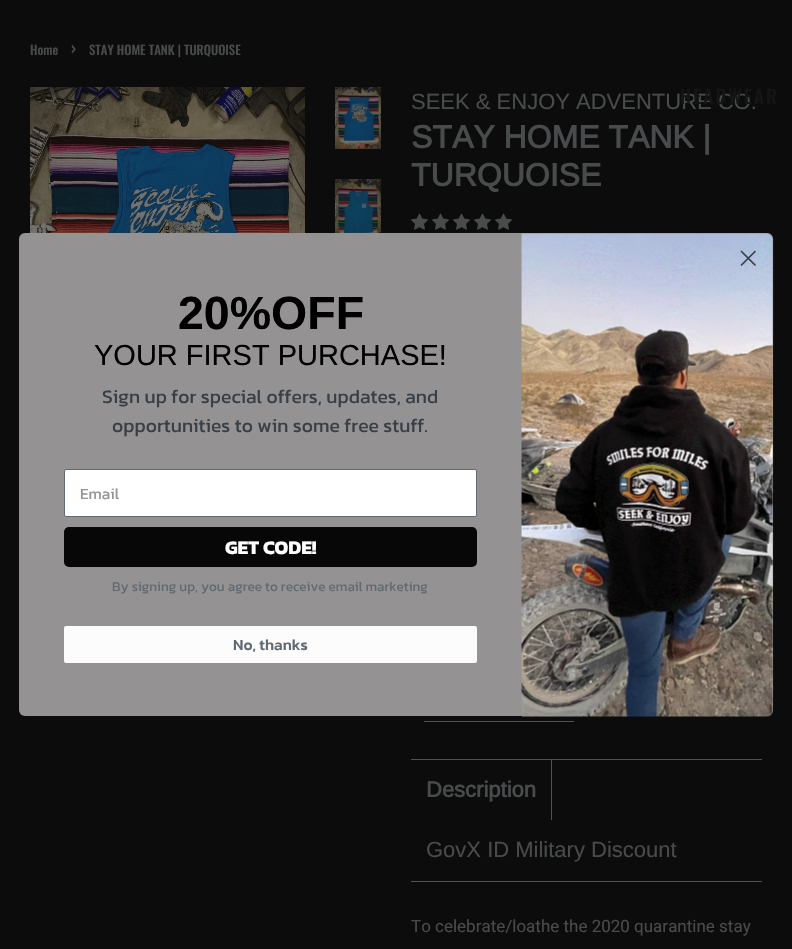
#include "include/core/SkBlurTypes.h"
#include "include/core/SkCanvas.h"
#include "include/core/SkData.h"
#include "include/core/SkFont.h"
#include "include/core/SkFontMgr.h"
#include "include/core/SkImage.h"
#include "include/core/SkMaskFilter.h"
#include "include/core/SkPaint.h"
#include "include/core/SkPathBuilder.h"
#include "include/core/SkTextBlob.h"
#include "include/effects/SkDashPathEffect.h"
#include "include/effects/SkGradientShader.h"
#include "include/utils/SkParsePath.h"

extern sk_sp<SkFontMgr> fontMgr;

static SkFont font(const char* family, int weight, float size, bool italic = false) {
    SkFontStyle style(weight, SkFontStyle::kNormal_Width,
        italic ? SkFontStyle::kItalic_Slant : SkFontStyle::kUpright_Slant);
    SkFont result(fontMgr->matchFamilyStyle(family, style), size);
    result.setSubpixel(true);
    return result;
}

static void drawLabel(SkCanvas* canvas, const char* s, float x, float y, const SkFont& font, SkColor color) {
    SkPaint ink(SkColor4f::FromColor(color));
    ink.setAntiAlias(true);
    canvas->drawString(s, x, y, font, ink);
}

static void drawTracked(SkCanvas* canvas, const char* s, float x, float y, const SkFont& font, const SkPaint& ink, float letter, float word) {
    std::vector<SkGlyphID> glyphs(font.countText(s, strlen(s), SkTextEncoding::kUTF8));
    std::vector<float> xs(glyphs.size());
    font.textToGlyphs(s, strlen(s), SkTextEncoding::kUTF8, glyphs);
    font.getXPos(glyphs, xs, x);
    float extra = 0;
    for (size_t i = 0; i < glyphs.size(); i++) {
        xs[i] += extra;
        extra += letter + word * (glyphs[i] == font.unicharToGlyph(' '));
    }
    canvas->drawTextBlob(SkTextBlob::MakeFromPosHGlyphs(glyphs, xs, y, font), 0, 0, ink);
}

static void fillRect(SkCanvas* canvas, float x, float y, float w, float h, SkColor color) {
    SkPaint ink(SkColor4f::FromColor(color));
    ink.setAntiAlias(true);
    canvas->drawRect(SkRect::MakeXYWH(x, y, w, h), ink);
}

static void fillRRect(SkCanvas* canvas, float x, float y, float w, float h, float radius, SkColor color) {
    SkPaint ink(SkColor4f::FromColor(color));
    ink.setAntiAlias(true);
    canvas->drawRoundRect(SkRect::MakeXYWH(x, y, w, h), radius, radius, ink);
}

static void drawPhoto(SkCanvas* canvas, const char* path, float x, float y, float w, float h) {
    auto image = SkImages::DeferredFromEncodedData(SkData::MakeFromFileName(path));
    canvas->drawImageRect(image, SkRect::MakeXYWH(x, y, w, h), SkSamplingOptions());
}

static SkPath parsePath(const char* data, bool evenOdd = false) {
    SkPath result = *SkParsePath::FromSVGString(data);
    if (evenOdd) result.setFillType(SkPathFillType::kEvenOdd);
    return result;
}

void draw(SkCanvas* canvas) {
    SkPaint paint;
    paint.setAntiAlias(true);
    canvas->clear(0xFF0C0C0C);
    SkFont font1 = font("Oswald", 500, 12.75f);
    drawLabel(canvas, "Home", 30, 55, font1, 0xFF484B4C);
    SkFont font2 = font("Oswald", 500, 18);
    drawLabel(canvas, "›", 71, 55, font2, 0xFF484B4C);
    drawLabel(canvas, "STAY HOME TANK | TURQUOISE", 89, 55, font1, 0xFF484B4C);
    drawPhoto(canvas, "assets/img1.png", 30, 87, 275, 146);
    drawPhoto(canvas, "assets/img2.png", 335, 87, 46, 62);
    drawPhoto(canvas, "assets/img3.png", 335, 179, 46, 54);
    SkFont font3 = font("Arimo", 400, 22);
    drawLabel(canvas, "SEEK & ENJOY ADVENTURE CO.", 411, 109, font3, 0xFF484B4C);
    SkFont font4 = font("Arimo", 700, 32);
    drawLabel(canvas, "STAY HOME TANK |", 411, 148, font4, 0xFF484B4C);
    drawLabel(canvas, "TURQUOISE", 411, 186, font4, 0xFF484B4C);
    drawPhoto(canvas, "assets/img4.png", 411, 213, 17, 17);
    drawPhoto(canvas, "assets/img4.png", 432, 213, 17, 17);
    drawPhoto(canvas, "assets/img4.png", 453, 213, 17, 17);
    drawPhoto(canvas, "assets/img4.png", 474, 213, 17, 17);
    drawPhoto(canvas, "assets/img4.png", 495, 213, 17, 17);
    fillRect(canvas, 424, 721, 150, 1, 0xFF515252);
    fillRect(canvas, 411, 759, 351, 1, 0xFF515252);
    fillRect(canvas, 411, 881, 351, 1, 0xFF515252);
    fillRect(canvas, 551, 760, 1, 60, 0xFF515252);
    SkFont font5 = font("Arimo", 700, 22);
    drawLabel(canvas, "Description", 426, 797, font5, 0xFF484B4C);
    drawLabel(canvas, "GovX ID Military Discount", 426, 857, font3, 0xFF484B4C);
    SkFont font6 = font("Roboto", 400, 17);
    drawLabel(canvas, "To celebrate/loathe the 2020 quarantine stay", 411, 932, font6, 0xFF484B4C);
    SkFont font7 = font("Oswald", 500, 18.75f);
    paint.setColor(0xFF141515);
    drawTracked(canvas, "HEADWEAR", 680, 104, font7, paint, 2.25f, 0);
    fillRRect(canvas, 19, 233, 754, 483, 6, 0xFF949292);
    drawPhoto(canvas, "assets/img5.png", 521, 233, 253, 484);
    paint.setStroke(true);
    paint.setStrokeWidth(1.7f);
    paint.setStrokeCap(SkPaint::kRound_Cap);
    paint.setStrokeJoin(SkPaint::kRound_Join);
    paint.setColor(0xFF373F47);
    canvas->drawPath(parsePath("M741.5 251.5L755 265M741.5 265L755 251.5Z"), paint);
    SkFont font8 = font("Liberation Sans", 700, 46.5f);
    drawLabel(canvas, "20%OFF", 178, 329, font8, 0xFF000000);
    SkFont font9 = font("Liberation Sans", 400, 29);
    drawLabel(canvas, "YOUR FIRST PURCHASE!", 94, 365, font9, 0xFF000000);
    SkFont font10 = font("Kanit", 400, 19.3f);
    drawLabel(canvas, "Sign up for special offers, updates, and", 102, 403, font10, 0xFF373F47);
    drawLabel(canvas, "opportunities to win some free stuff.", 112, 432, font10, 0xFF373F47);
    paint.setStroke(false);
    paint.setColor(0xFFFFFFFF);
    canvas->drawRoundRect(SkRect::MakeXYWH(64.5f, 469.5f, 412, 47), 1.5f, 1.5f, paint);
    paint.setStroke(true);
    paint.setStrokeWidth(1);
    paint.setStrokeCap(SkPaint::kButt_Cap);
    paint.setStrokeJoin(SkPaint::kMiter_Join);
    paint.setColor(0xFF606A72);
    canvas->drawRoundRect(SkRect::MakeXYWH(64.5f, 469.5f, 412, 47), 1.5f, 1.5f, paint);
    SkFont font11 = font("Kanit", 400, 15.5f);
    drawLabel(canvas, "Email", 80, 499, font11, 0xFF949596);
    fillRRect(canvas, 64, 527, 413, 40, 5, 0xFF070707);
    SkFont font12 = font("Kanit", 700, 19.3f);
    drawLabel(canvas, "GET CODE!", 225, 554, font12, 0xFFFFFFFF);
    SkFont font13 = font("Kanit", 400, 13.5f);
    drawLabel(canvas, "By signing up, you agree to receive email marketing", 112, 591, font13, 0xFF606A72);
    fillRRect(canvas, 64, 626, 413, 37, 2, 0xFFFCFCFC);
    SkFont font14 = font("Kanit", 500, 15.5f);
    drawLabel(canvas, "No, thanks", 233, 650, font14, 0xFF606A72);
}
